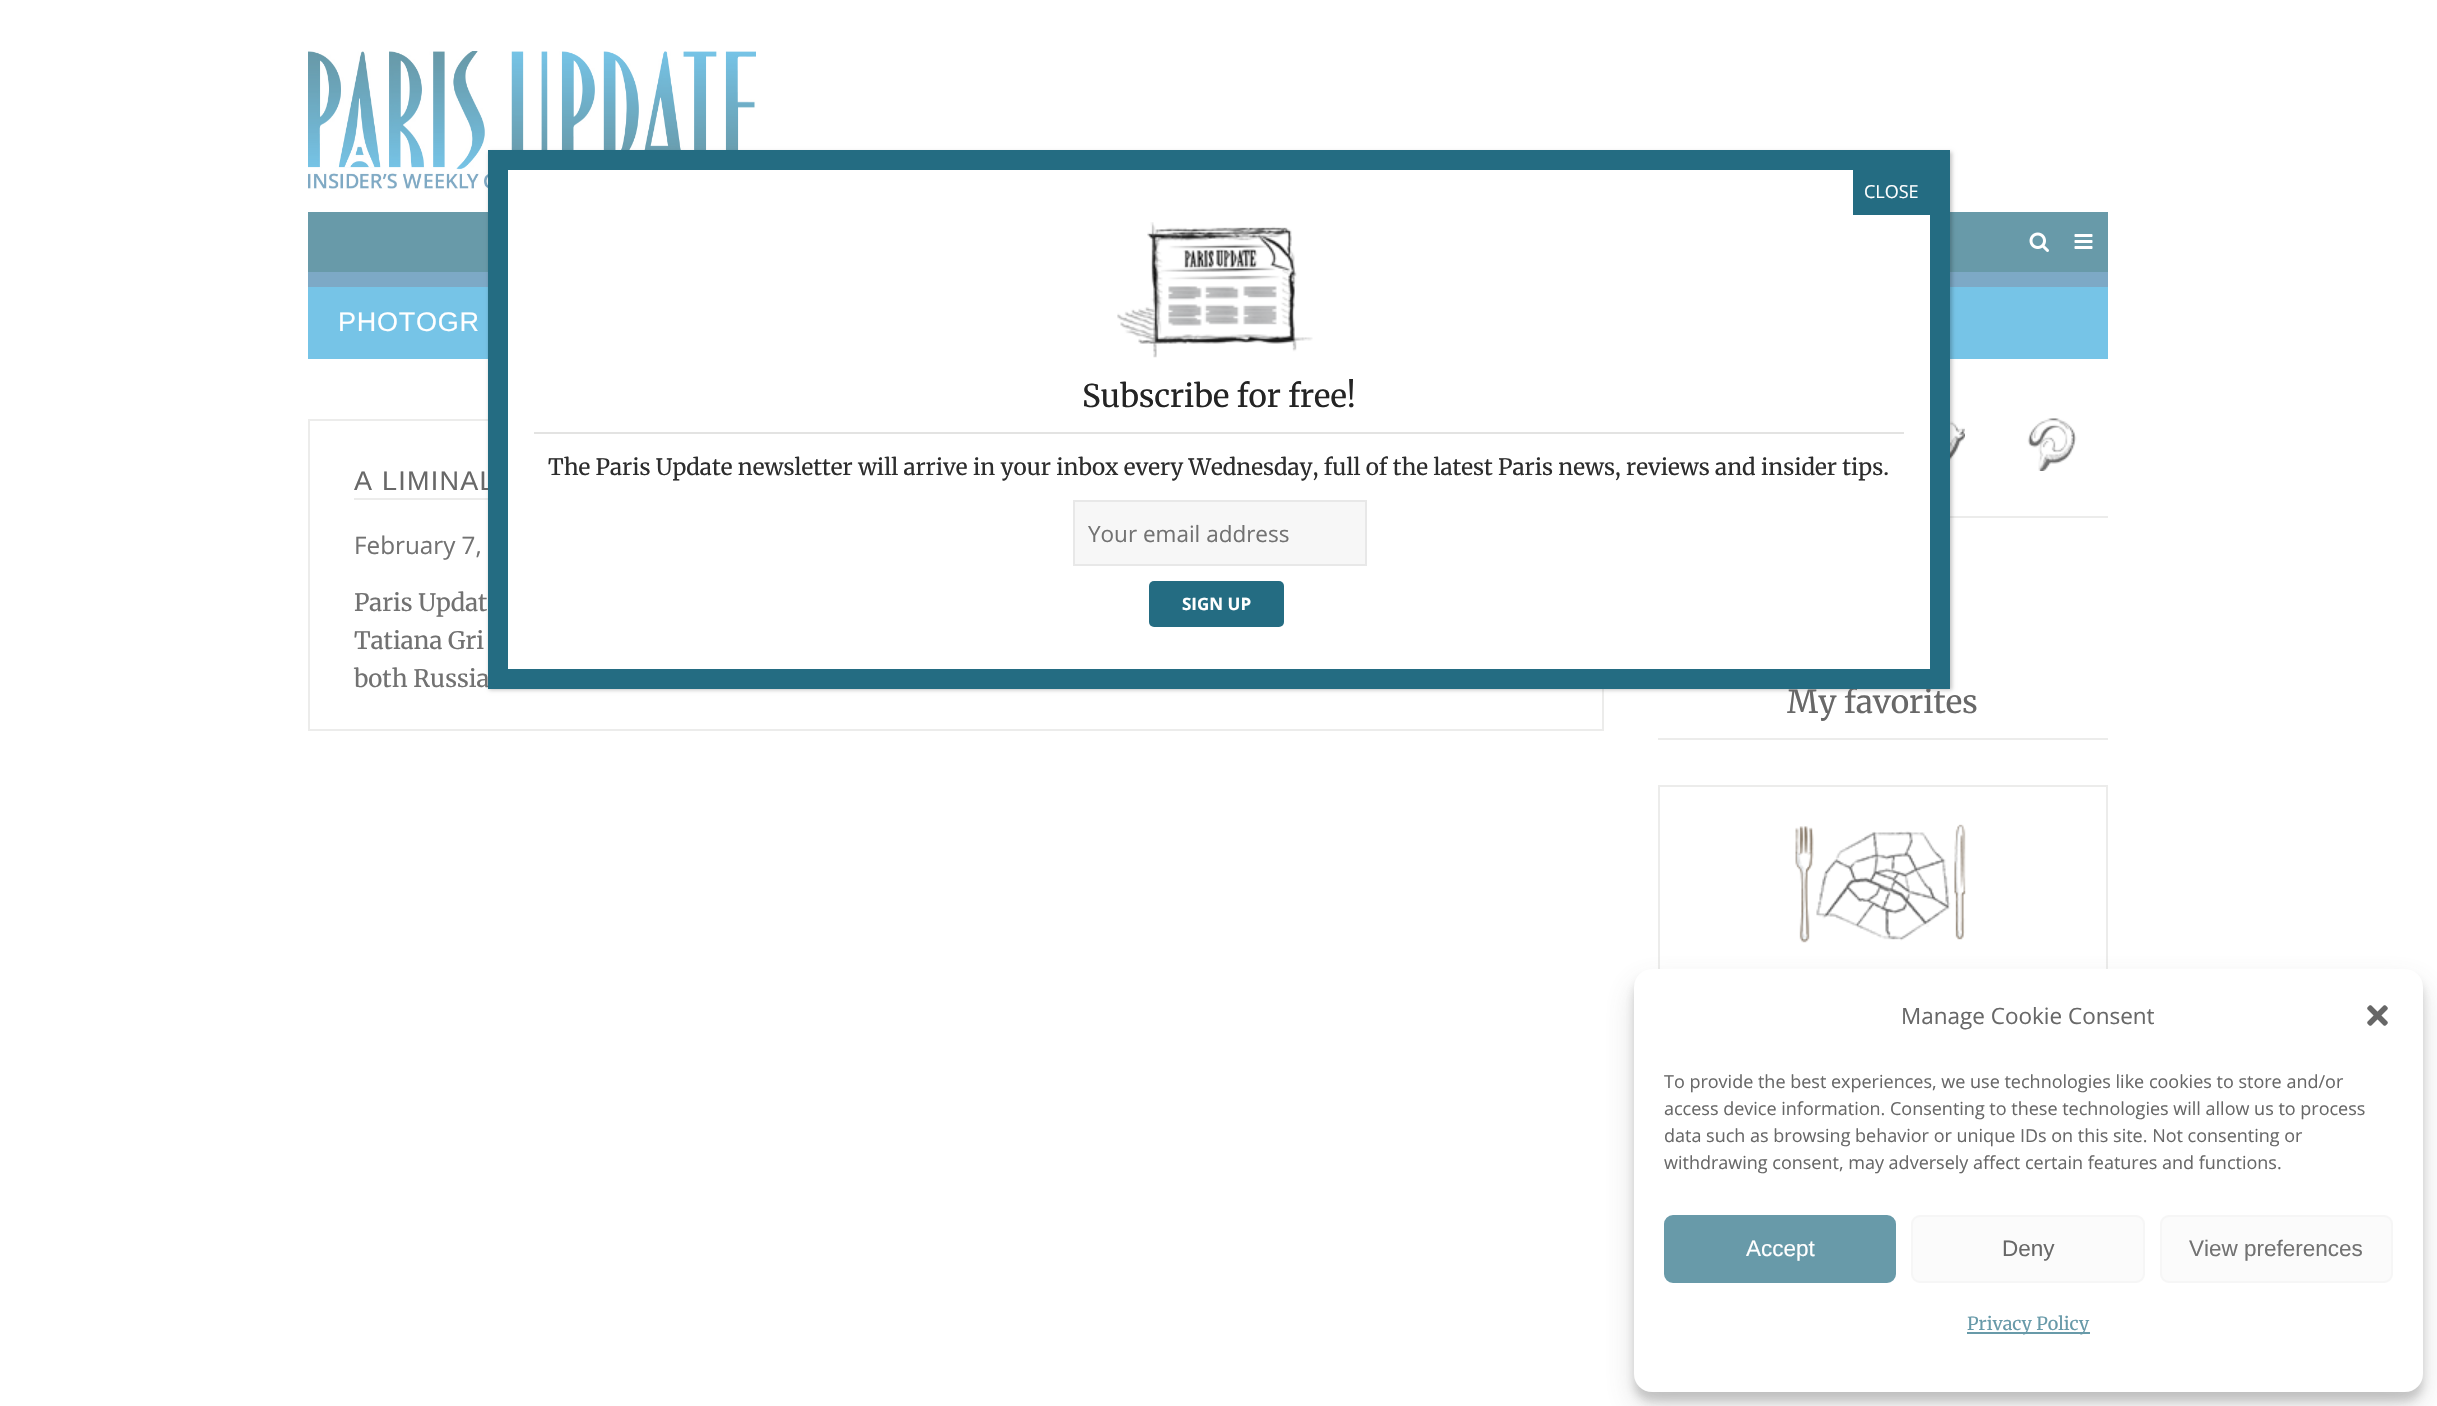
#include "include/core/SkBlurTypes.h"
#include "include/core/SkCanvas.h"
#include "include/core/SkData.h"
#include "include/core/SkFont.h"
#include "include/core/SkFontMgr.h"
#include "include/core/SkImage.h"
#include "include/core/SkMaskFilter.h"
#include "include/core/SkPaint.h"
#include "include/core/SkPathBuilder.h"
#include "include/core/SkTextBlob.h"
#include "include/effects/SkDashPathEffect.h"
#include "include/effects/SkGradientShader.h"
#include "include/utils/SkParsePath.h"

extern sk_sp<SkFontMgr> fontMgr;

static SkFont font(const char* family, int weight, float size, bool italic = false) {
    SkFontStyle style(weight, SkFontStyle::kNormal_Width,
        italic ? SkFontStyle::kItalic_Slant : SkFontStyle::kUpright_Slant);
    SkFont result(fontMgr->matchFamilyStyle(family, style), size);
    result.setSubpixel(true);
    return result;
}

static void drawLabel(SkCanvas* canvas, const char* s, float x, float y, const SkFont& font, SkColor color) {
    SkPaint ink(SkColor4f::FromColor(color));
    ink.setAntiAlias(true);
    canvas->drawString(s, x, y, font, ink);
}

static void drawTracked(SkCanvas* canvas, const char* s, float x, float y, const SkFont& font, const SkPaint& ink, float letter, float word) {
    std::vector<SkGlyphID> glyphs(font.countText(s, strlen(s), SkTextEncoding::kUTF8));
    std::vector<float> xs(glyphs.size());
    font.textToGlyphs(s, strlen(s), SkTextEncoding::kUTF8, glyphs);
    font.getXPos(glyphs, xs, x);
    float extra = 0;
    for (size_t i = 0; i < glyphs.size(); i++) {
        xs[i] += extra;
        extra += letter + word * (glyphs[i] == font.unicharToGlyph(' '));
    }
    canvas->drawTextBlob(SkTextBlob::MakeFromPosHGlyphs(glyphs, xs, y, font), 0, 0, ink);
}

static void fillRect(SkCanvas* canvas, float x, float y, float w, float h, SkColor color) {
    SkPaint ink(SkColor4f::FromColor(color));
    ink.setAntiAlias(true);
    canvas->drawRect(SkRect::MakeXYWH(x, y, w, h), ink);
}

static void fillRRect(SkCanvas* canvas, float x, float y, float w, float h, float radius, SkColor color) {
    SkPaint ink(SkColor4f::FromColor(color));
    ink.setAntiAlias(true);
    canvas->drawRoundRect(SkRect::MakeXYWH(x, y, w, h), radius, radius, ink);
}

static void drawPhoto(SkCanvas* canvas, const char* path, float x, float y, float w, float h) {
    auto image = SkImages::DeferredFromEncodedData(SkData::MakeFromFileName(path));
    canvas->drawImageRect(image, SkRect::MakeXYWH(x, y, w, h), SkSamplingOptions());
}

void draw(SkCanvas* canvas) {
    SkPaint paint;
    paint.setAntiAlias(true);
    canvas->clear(0xFFFFFFFF);
    drawPhoto(canvas, "assets/img2.png", 308, 51, 448, 138);
    fillRect(canvas, 308, 212, 1800, 60, 0xFF689AA9);
    fillRect(canvas, 308, 272, 1800, 15, 0xFF7DA9C6);
    fillRect(canvas, 308, 287, 1800, 72, 0xFF76C4E7);
    paint.setStroke(true);
    paint.setStrokeWidth(2);
    paint.setColor(0xFFECECEB);
    canvas->drawRect(SkRect::MakeXYWH(309, 420, 1294, 310), paint);
    fillRect(canvas, 354, 498, 134, 2, 0xFFECECEB);
    drawPhoto(canvas, "assets/img5.png", 1950, 421, 15, 40);
    fillRect(canvas, 1950, 516, 158, 2, 0xFFECECEB);
    paint.setStroke(false);
    paint.setColor(0x3B020202);
    paint.setMaskFilter(SkMaskFilter::MakeBlur(kNormal_SkBlurStyle, 2));
    canvas->drawRect(SkRect::MakeXYWH(489, 152, 1463, 538), paint);
    paint.setMaskFilter(nullptr);
    SkFont font1 = font("Liberation Sans", 400, 27);
    paint.setColor(0xFF686868);
    drawTracked(canvas, "A LIMINAL", 354, 490, font1, paint, 1.25f, 0);
    SkFont font2 = font("Merriweather", 300, 24);
    drawLabel(canvas, "both Russia", 354, 687, font2, 0xFF727272);
    SkFont font3 = font("Merriweather", 300, 31.5f);
    drawLabel(canvas, "My favorites", 1787, 713, font3, 0xFF686868);
    paint.setColor(0xFFFFFFFF);
    canvas->drawRect(SkRect::MakeXYWH(498, 160, 1442, 519), paint);
    paint.setStroke(true);
    paint.setStrokeWidth(20);
    paint.setColor(0xFF246C82);
    canvas->drawRect(SkRect::MakeXYWH(498, 160, 1442, 519), paint);
    fillRect(canvas, 1853, 170, 77, 45, 0xFF246C82);
    SkFont font4 = font("Open Sans", 400, 18);
    drawLabel(canvas, "CLOSE", 1864, 198, font4, 0xFFFFFFFF);
    drawPhoto(canvas, "assets/img1.png", 1117, 222, 196, 136);
    fillRect(canvas, 534, 432, 1370, 2, 0xFFE3E3E2);
    SkFont font5 = font("Merriweather", 300, 31.25f);
    drawLabel(canvas, "Subscribe for free!", 1082, 407, font5, 0xFF242424);
    SkFont font6 = font("Merriweather", 300, 22.5f);
    drawLabel(canvas, "The Paris Update newsletter will arrive in your inbox every Wednesday, full of the latest Paris news, reviews and insider tips.", 548, 475, font6, 0xFF2D2D2D);
    paint.setStroke(false);
    paint.setColor(0xFFF7F7F7);
    canvas->drawRect(SkRect::MakeXYWH(1074, 501, 292, 64), paint);
    paint.setStroke(true);
    paint.setStrokeWidth(2);
    paint.setColor(0xFFE8E8E8);
    canvas->drawRect(SkRect::MakeXYWH(1074, 501, 292, 64), paint);
    SkFont font7 = font("Open Sans", 400, 22.5f);
    drawLabel(canvas, "Your email address", 1088, 542, font7, 0xFF727272);
    fillRRect(canvas, 1149, 581, 135, 46, 5, 0xFF246C82);
    SkFont font8 = font("Open Sans", 700, 17);
    drawLabel(canvas, "SIGN UP", 1182, 610, font8, 0xFFFFFFFF);
    drawPhoto(canvas, "assets/img3.png", 2029, 232, 20, 20);
    drawPhoto(canvas, "assets/img4.png", 2074, 234, 19, 15);
    paint.setStroke(false);
    paint.setColor(0xFFFFFFFF);
    drawTracked(canvas, "PHOTOGR", 338, 331, font1, paint, 0.75f, 0);
    SkFont font9 = font("Open Sans", 400, 24.25f);
    drawLabel(canvas, "February 7,", 354, 554, font9, 0xFF727272);
    drawLabel(canvas, "Paris Updat", 354, 611, font2, 0xFF727272);
    drawLabel(canvas, "Tatiana Gri", 354, 649, font2, 0xFF727272);
    drawPhoto(canvas, "assets/img6.png", 2027, 418, 50, 53);
    fillRect(canvas, 1658, 738, 450, 2, 0xFFECECEB);
    drawPhoto(canvas, "assets/img7.png", 1795, 824, 171, 119);
    paint.setStroke(true);
    paint.setColor(0xFFECECEB);
    canvas->drawRect(SkRect::MakeXYWH(1659, 786, 448, 292), paint);
    paint.setStroke(false);
    paint.setColor(0x3B4F4F4F);
    paint.setMaskFilter(SkMaskFilter::MakeBlur(kNormal_SkBlurStyle, 4.5f));
    canvas->drawRoundRect(SkRect::MakeXYWH(1634, 978, 789, 423), 18, 18, paint);
    paint.setMaskFilter(nullptr);
    paint.setColor(0x304F4F4F);
    paint.setMaskFilter(SkMaskFilter::MakeBlur(kNormal_SkBlurStyle, 15));
    canvas->drawRoundRect(SkRect::MakeXYWH(1634, 984, 789, 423), 18, 18, paint);
    paint.setMaskFilter(nullptr);
    fillRRect(canvas, 1634, 969, 789, 423, 18, 0xFFFFFFFF);
    drawLabel(canvas, "Manage Cookie Consent", 1901, 1024, font7, 0xFF686868);
    drawPhoto(canvas, "assets/img8.png", 2367, 1005, 21, 21);
    drawLabel(canvas, "To provide the best experiences, we use technologies like cookies to store and/or", 1664, 1088, font4, 0xFF686868);
    drawLabel(canvas, "access device information. Consenting to these technologies will allow us to process", 1664, 1115, font4, 0xFF686868);
    drawLabel(canvas, "data such as browsing behavior or unique IDs on this site. Not consenting or", 1664, 1142, font4, 0xFF686868);
    drawLabel(canvas, "withdrawing consent, may adversely affect certain features and functions.", 1664, 1169, font4, 0xFF686868);
    paint.setColor(0xFF689AA9);
    canvas->drawRoundRect(SkRect::MakeXYWH(1665, 1216, 230, 66), 8, 8, paint);
    paint.setStroke(true);
    canvas->drawRoundRect(SkRect::MakeXYWH(1665, 1216, 230, 66), 8, 8, paint);
    SkFont font10 = font("Liberation Sans", 400, 22.5f);
    drawLabel(canvas, "Accept", 1746, 1256, font10, 0xFFFFFFFF);
    paint.setStroke(false);
    paint.setColor(0xFFFBFBFB);
    canvas->drawRoundRect(SkRect::MakeXYWH(1912, 1216, 232, 66), 8, 8, paint);
    paint.setStroke(true);
    paint.setColor(0xFFF6F6F6);
    canvas->drawRoundRect(SkRect::MakeXYWH(1912, 1216, 232, 66), 8, 8, paint);
    drawLabel(canvas, "Deny", 2002, 1256, font10, 0xFF686868);
    paint.setStroke(false);
    paint.setColor(0xFFFBFBFB);
    canvas->drawRoundRect(SkRect::MakeXYWH(2161, 1216, 231, 66), 8, 8, paint);
    paint.setStroke(true);
    paint.setColor(0xFFF6F6F6);
    canvas->drawRoundRect(SkRect::MakeXYWH(2161, 1216, 231, 66), 8, 8, paint);
    drawLabel(canvas, "View preferences", 2189, 1256, font10, 0xFF727272);
    fillRect(canvas, 1967, 1332, 123, 2, 0xFF689AA9);
    SkFont font11 = font("Merriweather", 300, 18);
    drawLabel(canvas, "Privacy Policy", 1967, 1330, font11, 0xFF689AA9);
}
